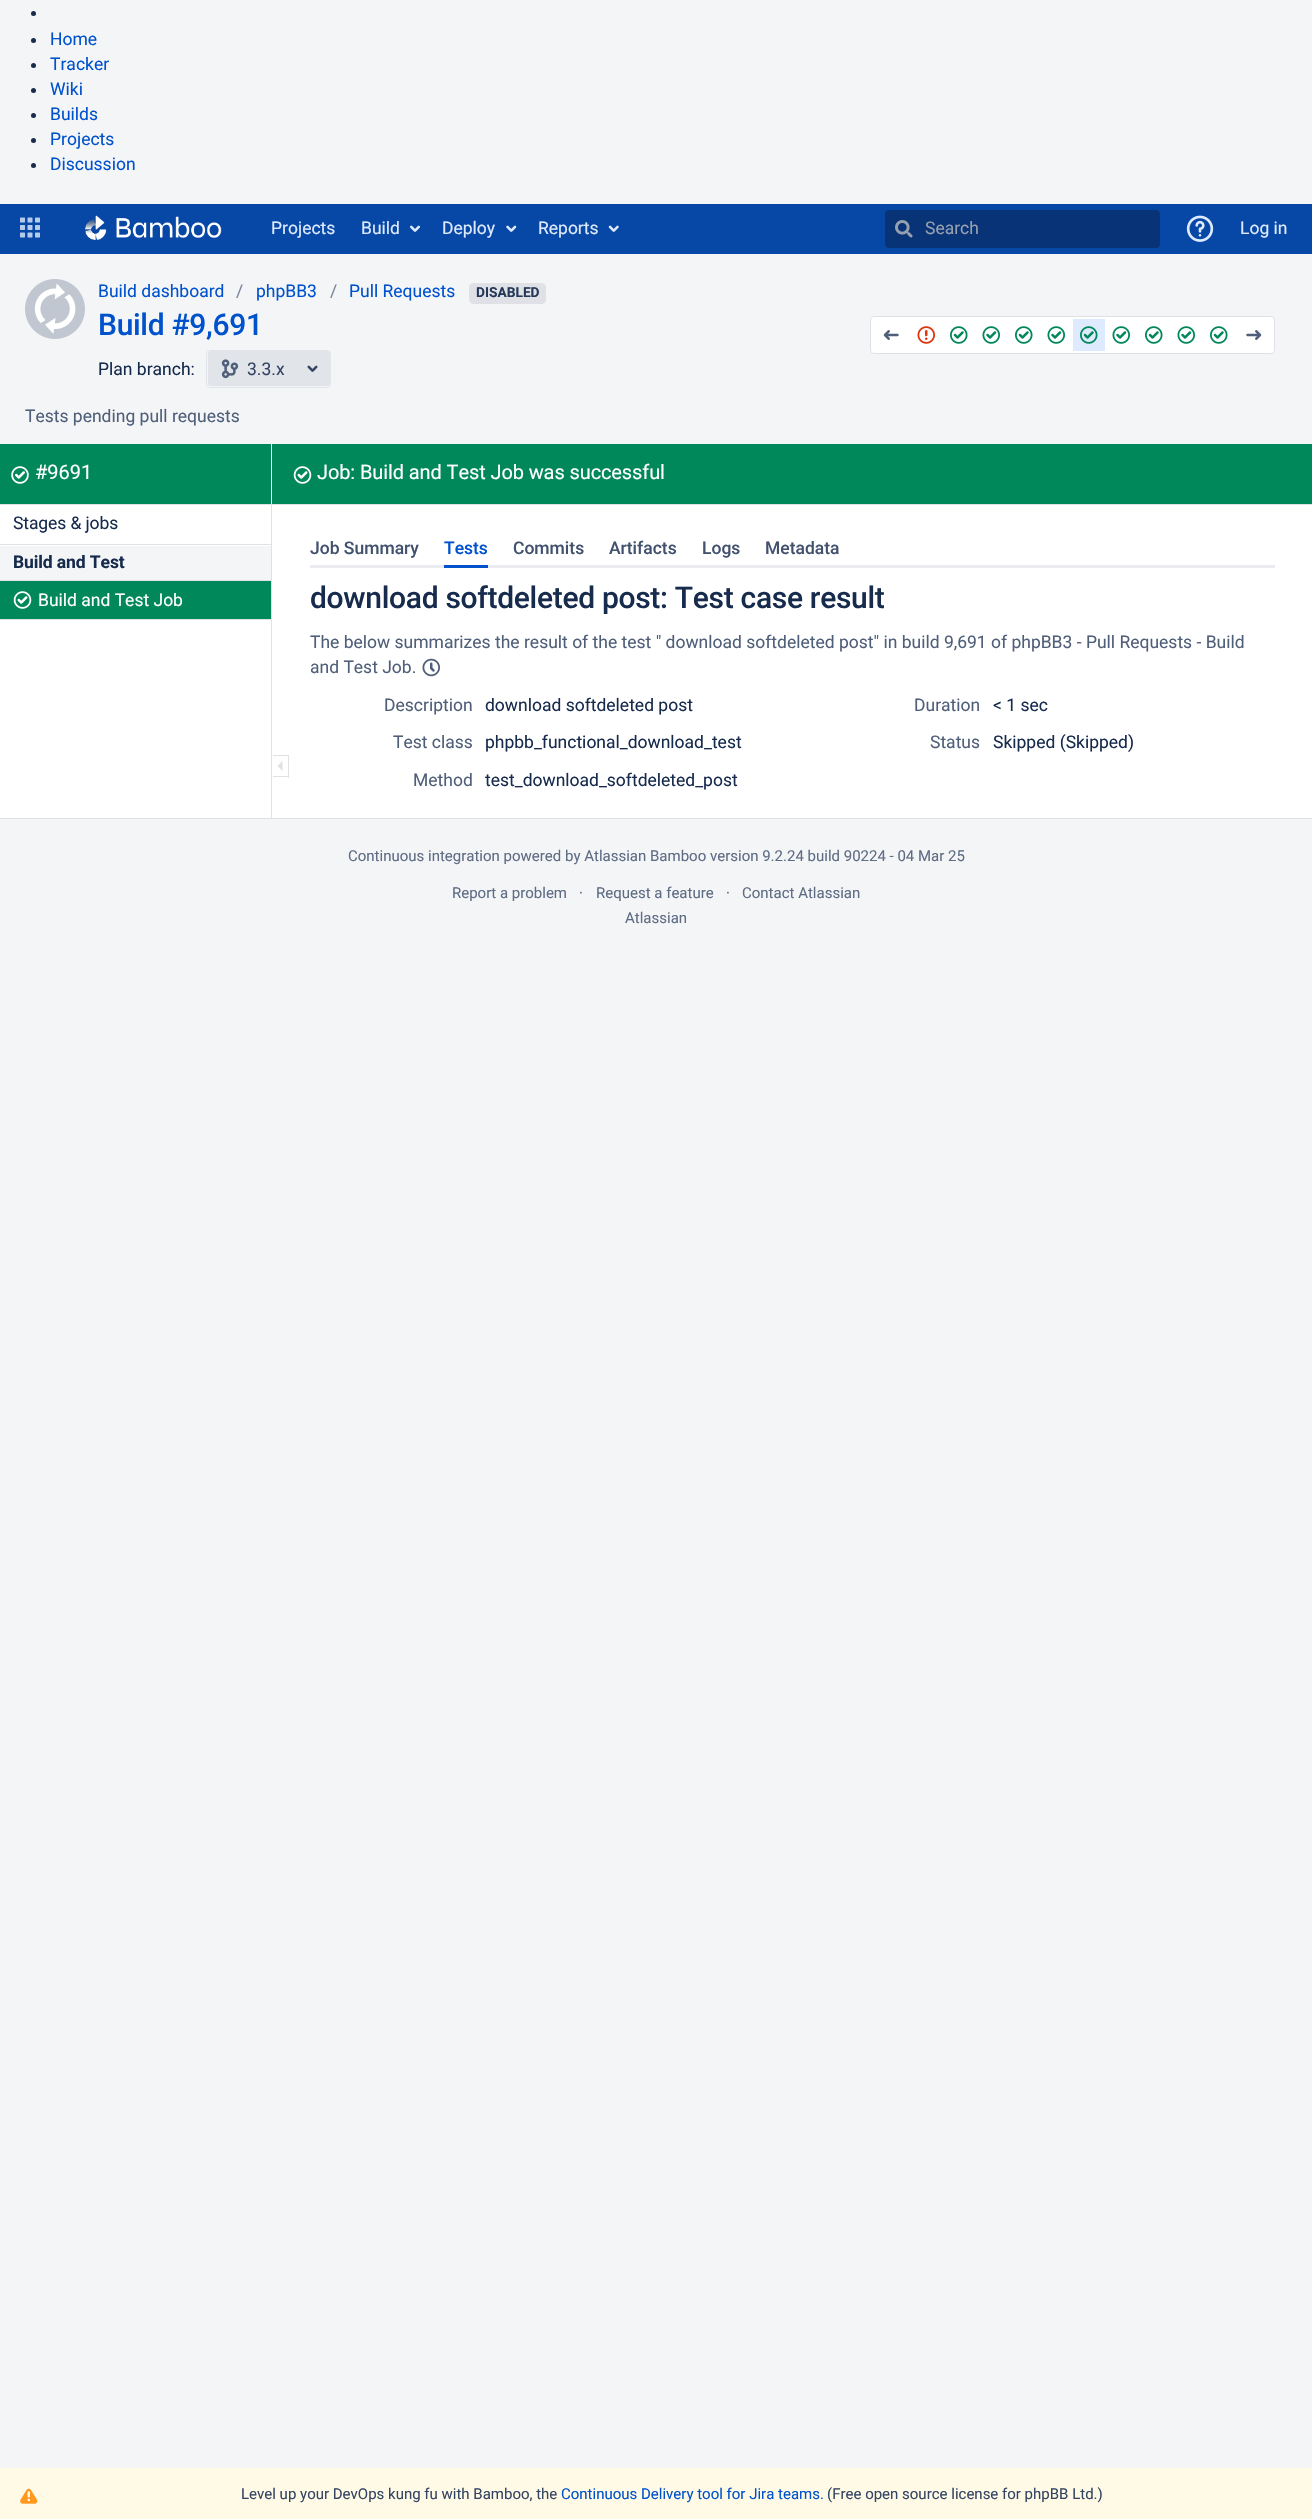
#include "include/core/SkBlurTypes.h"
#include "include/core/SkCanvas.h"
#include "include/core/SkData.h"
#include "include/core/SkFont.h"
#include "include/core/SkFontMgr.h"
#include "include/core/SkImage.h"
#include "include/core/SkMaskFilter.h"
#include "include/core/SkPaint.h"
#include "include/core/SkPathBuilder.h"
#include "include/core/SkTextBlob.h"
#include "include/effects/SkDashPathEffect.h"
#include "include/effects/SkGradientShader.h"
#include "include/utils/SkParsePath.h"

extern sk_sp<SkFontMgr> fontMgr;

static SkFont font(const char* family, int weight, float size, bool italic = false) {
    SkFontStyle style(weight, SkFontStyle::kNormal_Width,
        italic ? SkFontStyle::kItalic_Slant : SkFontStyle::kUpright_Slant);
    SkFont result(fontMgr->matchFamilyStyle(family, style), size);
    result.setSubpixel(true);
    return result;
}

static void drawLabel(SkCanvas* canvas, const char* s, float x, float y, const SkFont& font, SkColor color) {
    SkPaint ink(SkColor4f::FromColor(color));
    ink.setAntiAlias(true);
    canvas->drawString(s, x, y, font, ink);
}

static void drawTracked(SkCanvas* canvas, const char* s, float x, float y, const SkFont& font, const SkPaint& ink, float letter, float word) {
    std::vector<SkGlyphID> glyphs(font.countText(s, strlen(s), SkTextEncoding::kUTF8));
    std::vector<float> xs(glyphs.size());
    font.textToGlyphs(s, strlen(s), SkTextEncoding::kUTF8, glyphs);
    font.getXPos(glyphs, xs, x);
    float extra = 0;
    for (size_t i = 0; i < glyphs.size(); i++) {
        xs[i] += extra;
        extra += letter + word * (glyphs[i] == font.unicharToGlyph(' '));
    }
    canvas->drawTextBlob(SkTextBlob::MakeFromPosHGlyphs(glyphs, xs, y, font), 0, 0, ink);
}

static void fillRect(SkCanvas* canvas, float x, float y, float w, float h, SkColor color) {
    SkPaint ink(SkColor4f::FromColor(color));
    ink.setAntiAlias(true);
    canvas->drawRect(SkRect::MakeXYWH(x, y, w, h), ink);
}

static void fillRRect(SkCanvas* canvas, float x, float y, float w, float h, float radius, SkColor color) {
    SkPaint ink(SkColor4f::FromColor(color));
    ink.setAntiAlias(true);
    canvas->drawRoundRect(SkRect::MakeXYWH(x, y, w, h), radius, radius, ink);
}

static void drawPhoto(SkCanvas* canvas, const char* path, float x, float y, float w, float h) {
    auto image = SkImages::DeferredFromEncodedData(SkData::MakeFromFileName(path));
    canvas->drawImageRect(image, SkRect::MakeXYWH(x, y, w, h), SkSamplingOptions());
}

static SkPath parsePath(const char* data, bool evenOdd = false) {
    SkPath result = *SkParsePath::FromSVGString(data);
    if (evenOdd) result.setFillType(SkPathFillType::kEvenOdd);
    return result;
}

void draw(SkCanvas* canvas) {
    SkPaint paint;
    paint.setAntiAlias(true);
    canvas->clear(0xFFF4F5F7);
    paint.setColor(0xFF172B4D);
    canvas->drawCircle(33.5f, 13.5f, 2.5f, paint);
    canvas->drawCircle(33.5f, 40.5f, 2.5f, paint);
    SkFont font1 = font("Roboto", 400, 17.5f);
    drawLabel(canvas, "Home", 50, 45, font1, 0xFF0052CC);
    canvas->drawCircle(33.5f, 65.5f, 2.5f, paint);
    drawLabel(canvas, "Tracker", 50, 70, font1, 0xFF0052CC);
    canvas->drawCircle(33.5f, 90.5f, 2.5f, paint);
    drawLabel(canvas, "Wiki", 50, 95, font1, 0xFF0052CC);
    canvas->drawCircle(33.5f, 115.5f, 2.5f, paint);
    drawLabel(canvas, "Builds", 50, 120, font1, 0xFF0052CC);
    canvas->drawCircle(33.5f, 140.5f, 2.5f, paint);
    drawLabel(canvas, "Projects", 50, 145, font1, 0xFF0052CC);
    canvas->drawCircle(33.5f, 165.5f, 2.5f, paint);
    drawLabel(canvas, "Discussion", 50, 170, font1, 0xFF0052CC);
    fillRect(canvas, 0, 204, 1312, 50, 0xFF0747A6);
    drawPhoto(canvas, "assets/img1.png", 20, 217, 20, 21);
    drawPhoto(canvas, "assets/img2.png", 85, 215, 137, 25);
    drawLabel(canvas, "Projects", 271, 234, font1, 0xFFDEEBFF);
    drawLabel(canvas, "Build", 361, 234, font1, 0xFFDEEBFF);
    drawPhoto(canvas, "assets/img3.png", 410, 225, 10, 7);
    drawLabel(canvas, "Deploy", 442, 234, font1, 0xFFDEEBFF);
    drawPhoto(canvas, "assets/img4.png", 506, 225, 11, 7);
    drawLabel(canvas, "Reports", 538, 234, font1, 0xFFDEEBFF);
    drawPhoto(canvas, "assets/img5.png", 608, 225, 11, 7);
    fillRRect(canvas, 885, 210, 275, 38, 4, 0xFF083376);
    drawPhoto(canvas, "assets/img6.png", 895, 220, 18, 18);
    drawLabel(canvas, "Search", 925, 234, font1, 0xFF97A0AF);
    drawPhoto(canvas, "assets/img7.png", 1186, 215, 28, 27);
    drawLabel(canvas, "Log in", 1240, 234, font1, 0xFFDEEBFF);
    drawPhoto(canvas, "assets/img8.png", 25, 279, 60, 60);
    drawLabel(canvas, "Build dashboard", 98, 297, font1, 0xFF0052CC);
    drawLabel(canvas, "/", 236, 297, font1, 0xFF7A869A);
    drawLabel(canvas, "phpBB3", 256, 297, font1, 0xFF0052CC);
    drawLabel(canvas, "/", 330, 297, font1, 0xFF7A869A);
    drawLabel(canvas, "Pull Requests", 349, 297, font1, 0xFF0052CC);
    fillRRect(canvas, 470, 284, 75, 19, 2.5f, 0xFFDFE1E6);
    paint.setStroke(true);
    paint.setStrokeWidth(1);
    paint.setColor(0xFFDFE1E6);
    canvas->drawRoundRect(SkRect::MakeXYWH(469.5f, 283.5f, 76, 20), 3.5f, 3.5f, paint);
    SkFont font2 = font("Roboto", 700, 13.75f);
    drawLabel(canvas, "DISABLED", 476, 297, font2, 0xFF253858);
    SkFont font3 = font("Roboto", 500, 30);
    paint.setStroke(false);
    paint.setColor(0xFF0052CC);
    drawTracked(canvas, "Build #9,691", 98, 335, font3, paint, -0.3f, 0);
    drawLabel(canvas, "Plan branch:", 98, 375, font1, 0xFF172B4D);
    fillRRect(canvas, 208, 351, 122, 35, 2.5f, 0xFFE1E4E9);
    paint.setStroke(true);
    paint.setColor(0xFFE1E4E9);
    canvas->drawRoundRect(SkRect::MakeXYWH(206.5f, 350.5f, 124, 37), 3.5f, 3.5f, paint);
    drawPhoto(canvas, "assets/img9.png", 221, 359, 18, 20);
    drawLabel(canvas, "3.3.x", 247, 375, font1, 0xFF344563);
    drawPhoto(canvas, "assets/img10.png", 307, 365, 11, 7);
    paint.setStroke(false);
    paint.setColor(0xFFFFFFFF);
    canvas->drawRoundRect(SkRect::MakeXYWH(870.5f, 316.5f, 404, 37), 3.5f, 3.5f, paint);
    paint.setStroke(true);
    paint.setColor(0xFFDFE1E5);
    canvas->drawRoundRect(SkRect::MakeXYWH(870.5f, 316.5f, 404, 37), 3.5f, 3.5f, paint);
    drawPhoto(canvas, "assets/img11.png", 883, 330, 16, 10);
    drawPhoto(canvas, "assets/img12.png", 917, 326, 18, 18);
    drawPhoto(canvas, "assets/img13.png", 950, 326, 18, 18);
    drawPhoto(canvas, "assets/img14.png", 982, 326, 18, 18);
    drawPhoto(canvas, "assets/img13.png", 1015, 326, 18, 18);
    drawPhoto(canvas, "assets/img14.png", 1047, 326, 18, 18);
    fillRect(canvas, 1073, 319, 32, 32, 0xFFDEEBFF);
    drawPhoto(canvas, "assets/img15.png", 1080, 326, 18, 18);
    drawPhoto(canvas, "assets/img14.png", 1112, 326, 18, 18);
    drawPhoto(canvas, "assets/img13.png", 1145, 326, 18, 18);
    drawPhoto(canvas, "assets/img14.png", 1177, 326, 18, 18);
    drawPhoto(canvas, "assets/img13.png", 1210, 326, 18, 18);
    drawPhoto(canvas, "assets/img16.png", 1246, 330, 16, 10);
    drawLabel(canvas, "Tests pending pull requests", 25, 422, font1, 0xFF505F79);
    fillRect(canvas, 0, 444, 271, 60, 0xFF00875A);
    drawPhoto(canvas, "assets/img17.png", 11, 466, 18, 18);
    SkFont font4 = font("Roboto", 400, 20);
    drawLabel(canvas, "#9691", 35, 479, font4, 0xFFFFFFFF);
    fillRect(canvas, 272, 444, 1040, 60, 0xFF00875A);
    drawPhoto(canvas, "assets/img18.png", 293, 466, 19, 18);
    paint.setStroke(false);
    paint.setColor(0xFFFFFFFF);
    drawTracked(canvas, "Job: Build and Test Job was successful", 317, 479, font4, paint, -0.1f, 0);
    fillRect(canvas, 0, 505, 1312, 313, 0xFFFFFFFF);
    fillRect(canvas, 0, 504, 1312, 1, 0xFFDFE1E6);
    fillRect(canvas, 0, 818, 1312, 1, 0xFFDFE1E6);
    fillRect(canvas, 271, 505, 1, 313, 0xFFDFE1E5);
    paint.setColor(0xFF172B4D);
    drawTracked(canvas, "Stages & jobs", 13, 529, font1, paint, -0.1f, 0);
    fillRect(canvas, 0, 619, 271, 1, 0xFFDFE1E5);
    fillRect(canvas, 0, 544, 271, 1, 0xFFDFE1E5);
    fillRect(canvas, 0, 546, 271, 34, 0xFFF4F5F7);
    SkFont font5 = font("Roboto", 700, 17.5f);
    drawTracked(canvas, "Build and Test", 13, 568, font5, paint, -0.1f, 0);
    fillRect(canvas, 0, 581, 271, 38, 0xFF00875A);
    fillRect(canvas, 0, 580, 271, 1, 0xFFDFE1E5);
    drawPhoto(canvas, "assets/img18.png", 13, 591, 19, 18);
    drawLabel(canvas, "Build and Test Job", 38, 606, font1, 0xFFFFFFFF);
    fillRect(canvas, 273, 755, 16, 1, 0xFFDFE1E5);
    fillRect(canvas, 288, 755, 1, 23, 0xFFDFE1E5);
    fillRect(canvas, 273, 776, 16, 1, 0xFFDFE1E5);
    paint.setColor(0xFFDFE1E5);
    canvas->drawPath(parsePath("M282.5 761V771L277.5 766Z"), paint);
    SkFont font6 = font("Roboto", 500, 17.5f);
    drawLabel(canvas, "Job Summary", 310, 554, font6, 0xFF42526E);
    drawLabel(canvas, "Tests", 444, 554, font6, 0xFF0052CC);
    fillRect(canvas, 310, 565, 965, 3, 0xFFEBECF1);
    fillRect(canvas, 444, 565, 44, 3, 0xFF0052CC);
    drawLabel(canvas, "Commits", 513, 554, font6, 0xFF42526E);
    drawLabel(canvas, "Artifacts", 609, 554, font6, 0xFF42526E);
    drawLabel(canvas, "Logs", 702, 554, font6, 0xFF42526E);
    drawLabel(canvas, "Metadata", 765, 554, font6, 0xFF42526E);
    paint.setColor(0xFF172B4D);
    drawTracked(canvas, "download softdeleted post: Test case result", 310, 608, font3, paint, -0.3f, 0);
    drawLabel(canvas, "The below summarizes the result of the test \" download softdeleted post\" in build 9,691 of phpBB3 - Pull Requests - Build", 310, 648, font1, 0xFF505F79);
    drawLabel(canvas, "and Test Job.", 310, 673, font1, 0xFF505F79);
    drawPhoto(canvas, "assets/img19.png", 422, 658, 18, 19);
    drawLabel(canvas, "Description", 384, 711, font1, 0xFF505F79);
    drawLabel(canvas, "download softdeleted post", 485, 711, font1, 0xFF172B4D);
    drawLabel(canvas, "Test class", 393, 748, font1, 0xFF505F79);
    drawLabel(canvas, "phpbb_functional_download_test", 485, 748, font1, 0xFF172B4D);
    drawLabel(canvas, "Method", 413, 786, font1, 0xFF505F79);
    drawLabel(canvas, "test_download_softdeleted_post", 485, 786, font1, 0xFF172B4D);
    drawLabel(canvas, "Duration", 914, 711, font1, 0xFF505F79);
    drawLabel(canvas, "< 1 sec", 993, 711, font1, 0xFF172B4D);
    drawLabel(canvas, "Status", 930, 748, font1, 0xFF505F79);
    drawLabel(canvas, "Skipped (Skipped)", 993, 748, font1, 0xFF172B4D);
    SkFont font7 = font("Roboto", 400, 15);
    drawLabel(canvas, "Continuous integration powered by Atlassian Bamboo version 9.2.24 build 90224 - 04 Mar 25", 348, 861, font7, 0xFF5E6C84);
    drawLabel(canvas, "Report a problem", 452, 898, font7, 0xFF5E6C84);
    drawLabel(canvas, "·", 579, 898, font7, 0xFF5E6C84);
    drawLabel(canvas, "Request a feature", 596, 898, font7, 0xFF5E6C84);
    drawLabel(canvas, "·", 726, 898, font7, 0xFF5E6C84);
    drawLabel(canvas, "Contact Atlassian", 742, 898, font7, 0xFF5E6C84);
    drawLabel(canvas, "Atlassian", 625, 923, font7, 0xFF5E6C84);
    fillRect(canvas, 0, 2468, 1312, 51, 0xFFFFFAE6);
    drawPhoto(canvas, "assets/img20.png", 20, 2488, 18, 16);
    drawLabel(canvas, "Level up your DevOps kung fu with Bamboo, the", 241, 2499, font7, 0xFF344563);
    drawLabel(canvas, "Continuous Delivery tool for Jira teams.", 561, 2499, font7, 0xFF0052CC);
    drawLabel(canvas, "(Free open source license for phpBB Ltd.)", 827, 2499, font7, 0xFF344563);
}
